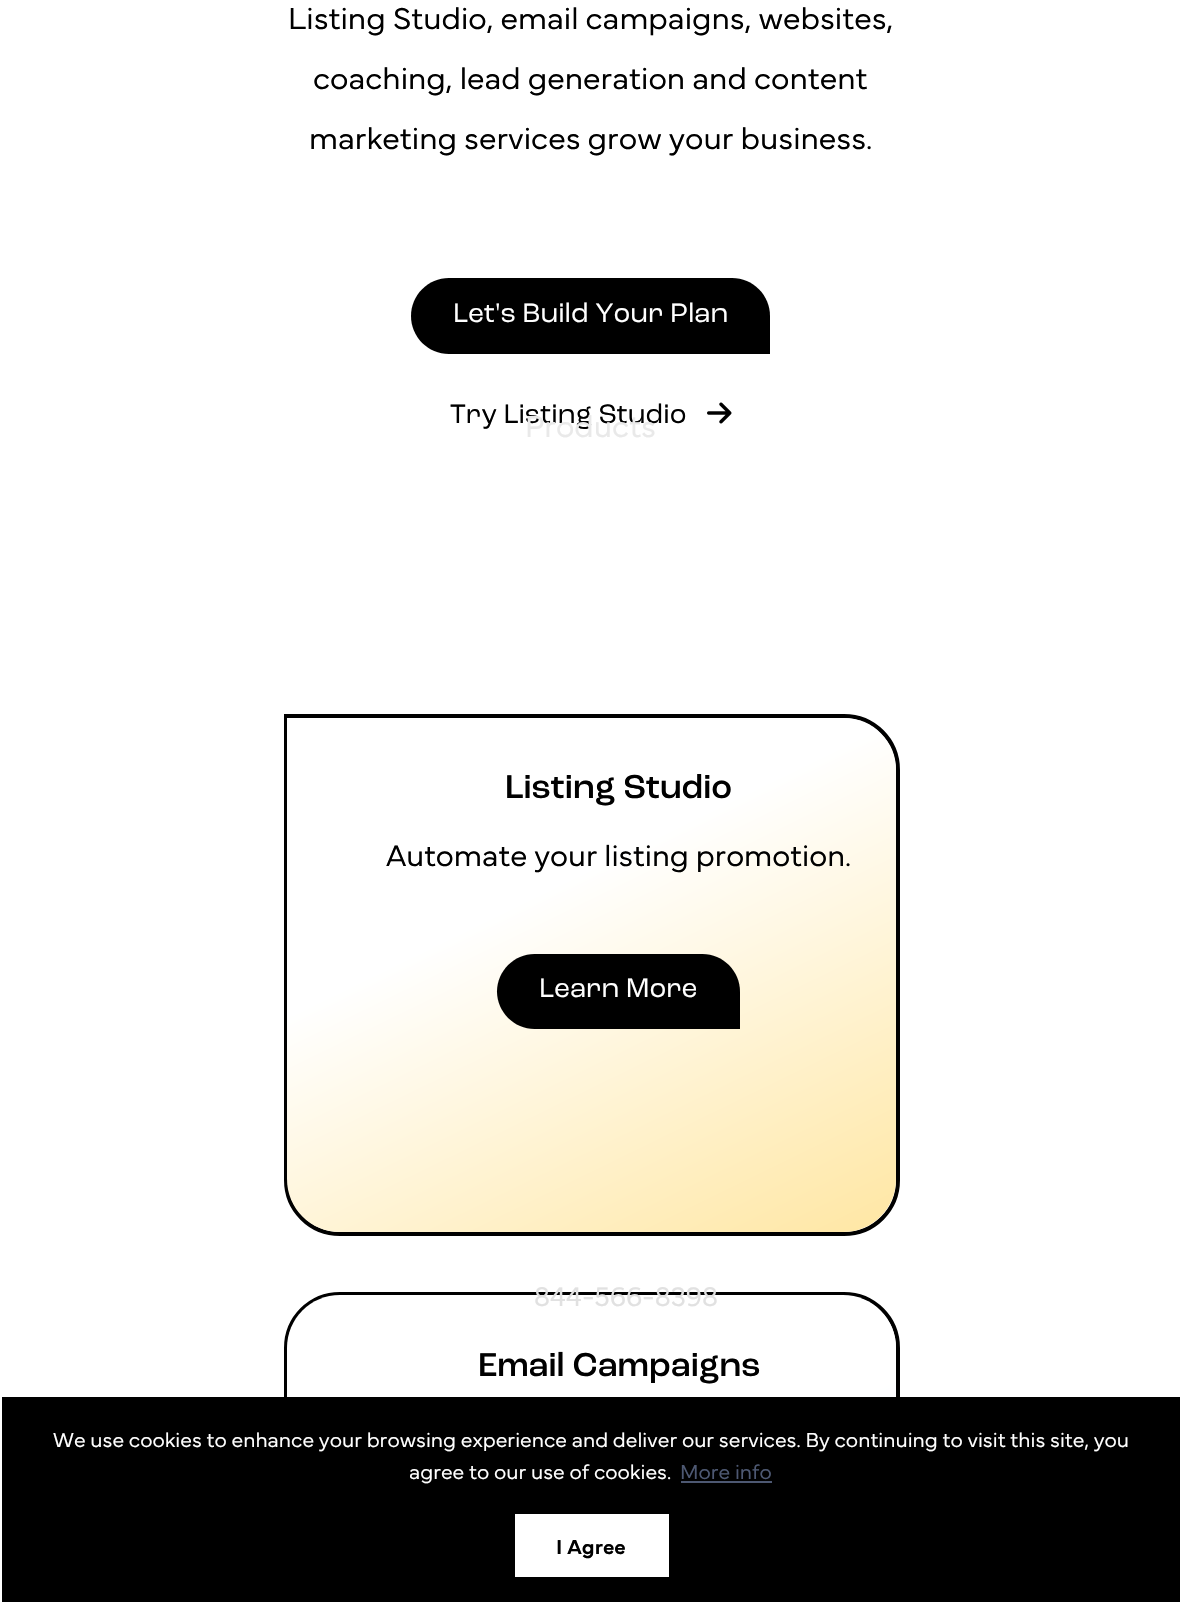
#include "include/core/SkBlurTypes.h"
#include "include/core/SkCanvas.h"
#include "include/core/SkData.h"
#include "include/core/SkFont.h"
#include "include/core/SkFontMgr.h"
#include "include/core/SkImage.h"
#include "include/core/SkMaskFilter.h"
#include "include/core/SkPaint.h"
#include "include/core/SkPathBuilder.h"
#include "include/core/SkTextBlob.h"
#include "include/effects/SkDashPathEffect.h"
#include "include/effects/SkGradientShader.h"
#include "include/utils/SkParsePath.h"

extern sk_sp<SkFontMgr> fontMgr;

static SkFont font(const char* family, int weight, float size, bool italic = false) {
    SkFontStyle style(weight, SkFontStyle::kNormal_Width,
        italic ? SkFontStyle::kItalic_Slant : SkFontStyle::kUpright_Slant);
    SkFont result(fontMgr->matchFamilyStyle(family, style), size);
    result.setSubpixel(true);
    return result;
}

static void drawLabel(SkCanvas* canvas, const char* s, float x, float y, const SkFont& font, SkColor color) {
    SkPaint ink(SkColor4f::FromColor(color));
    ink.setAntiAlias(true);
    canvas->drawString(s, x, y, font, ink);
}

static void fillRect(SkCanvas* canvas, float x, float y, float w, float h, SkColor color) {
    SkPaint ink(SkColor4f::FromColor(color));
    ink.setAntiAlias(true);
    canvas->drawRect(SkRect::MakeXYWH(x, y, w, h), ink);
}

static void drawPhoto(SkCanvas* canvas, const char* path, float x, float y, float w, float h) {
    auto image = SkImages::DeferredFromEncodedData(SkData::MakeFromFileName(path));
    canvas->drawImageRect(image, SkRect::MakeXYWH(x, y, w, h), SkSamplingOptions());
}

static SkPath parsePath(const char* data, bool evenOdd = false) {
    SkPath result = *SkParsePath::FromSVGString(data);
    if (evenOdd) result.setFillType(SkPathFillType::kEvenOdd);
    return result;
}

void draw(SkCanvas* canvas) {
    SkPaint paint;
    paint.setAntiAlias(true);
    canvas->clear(0xFFFFFFFF);
    SkFont font1 = font("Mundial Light", 300, 31.5f);
    drawLabel(canvas, "Listing Studio, email campaigns, websites,", 288, 29, font1, 0xFF000000);
    drawLabel(canvas, "coaching, lead generation and content", 313, 89, font1, 0xFF000000);
    drawLabel(canvas, "marketing services grow your business.", 309, 149, font1, 0xFF000000);
    paint.setColor(0xFF000000);
    canvas->drawPath(parsePath("M449 278H732C753 278 770 295 770 316V354H449C428 354 411 337 411 316C411 295 428 278 449 278Z"), paint);
    SkFont font2 = font("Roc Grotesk", 400, 28);
    drawLabel(canvas, "Let's Build Your Plan", 453, 322, font2, 0xFFFFFFFF);
    drawLabel(canvas, "Try Listing Studio", 450, 423, font2, 0xFF000000);
    drawPhoto(canvas, "assets/img1.png", 707, 402, 25, 22);
    paint.setStroke(true);
    paint.setStrokeWidth(4);
    canvas->drawPath(parsePath("M286 716H844C874 716 898 740 898 770V1180C898 1210 874 1234 844 1234H340C310 1234 286 1210 286 1180Z"), paint);
    paint.setStroke(false);
    {
        const SkColor colors[] = {0xFFFFFFFF, 0xFFFFBE0B};
        const float stops[] = {0.18f, 1};
        const SkPoint ends[] = {{401, 662}, {1055, 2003}};
        paint.setShader(SkGradientShader::MakeLinear(ends, colors, stops, 2, SkTileMode::kClamp));
        paint.setAlpha(255);
    }
    canvas->drawPath(parsePath("M287 718H843C872.5 718 896 741.5 896 771V1179C896 1208.5 872.5 1232 843 1232H340C310.5 1232 287 1208.5 287 1179Z"), paint);
    SkFont font3 = font("Roc Grotesk", 500, 34.75f);
    drawLabel(canvas, "Listing Studio", 505, 798, font3, 0xFF000000);
    SkFont font4 = font("Mundial Light", 300, 30.75f);
    drawLabel(canvas, "Automate your listing promotion.", 386, 866, font4, 0xFF000000);
    paint.setShader(nullptr);
    paint.setColor(0xFF000000);
    canvas->drawPath(parsePath("M534.5 954H702.5C723 954 740 971 740 991.5V1029H534.5C514 1029 497 1012 497 991.5C497 971 514 954 534.5 954Z"), paint);
    drawLabel(canvas, "Learn More", 539, 997, font2, 0xFFFFFFFF);
    paint.setStroke(true);
    canvas->drawPath(parsePath("M340 1294H844C874 1294 898 1318 898 1348V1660H340C310 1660 286 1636 286 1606V1348C286 1318 310 1294 340 1294Z"), paint);
    paint.setStroke(false);
    {
        const SkColor colors[] = {0xFFFFFFFF, 0xFF3A86FF};
        const float stops[] = {0.18f, 1};
        const SkPoint ends[] = {{350, 1264}, {1180, 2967}};
        paint.setShader(SkGradientShader::MakeLinear(ends, colors, stops, 2, SkTileMode::kClamp));
        paint.setAlpha(255);
    }
    canvas->drawPath(parsePath("M340 1295H843C872.5 1295 896 1318.5 896 1348V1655H340C310.5 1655 287 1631.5 287 1602V1348C287 1318.5 310.5 1295 340 1295Z"), paint);
    drawLabel(canvas, "Email Campaigns", 478, 1376, font3, 0xFF000000);
    drawLabel(canvas, "Products", 525, 437, font1, 0xFFE9E9E9);
    SkFont font5 = font("Mundial Light", 300, 28);
    drawLabel(canvas, "844-566-8398", 534, 1306, font5, 0xFFE1E1E1);
    fillRect(canvas, 2, 1397, 1178, 205, 0xFF000000);
    SkFont font6 = font("Mundial Light", 300, 21);
    drawLabel(canvas, "We use cookies to enhance your browsing experience and deliver our services. By continuing to visit this site, you", 53, 1447, font6, 0xFFFFFFFF);
    drawLabel(canvas, "agree to our use of cookies.", 409, 1479, font6, 0xFFFFFFFF);
    drawLabel(canvas, "More info", 680, 1479, font6, 0xFF4D5872);
    fillRect(canvas, 681, 1481, 91, 2, 0xFF4D5872);
    fillRect(canvas, 515, 1514, 154, 63, 0xFFFFFFFF);
    SkFont font7 = font("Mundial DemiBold", 600, 21);
    drawLabel(canvas, "I Agree", 556, 1554, font7, 0xFF000000);
}
